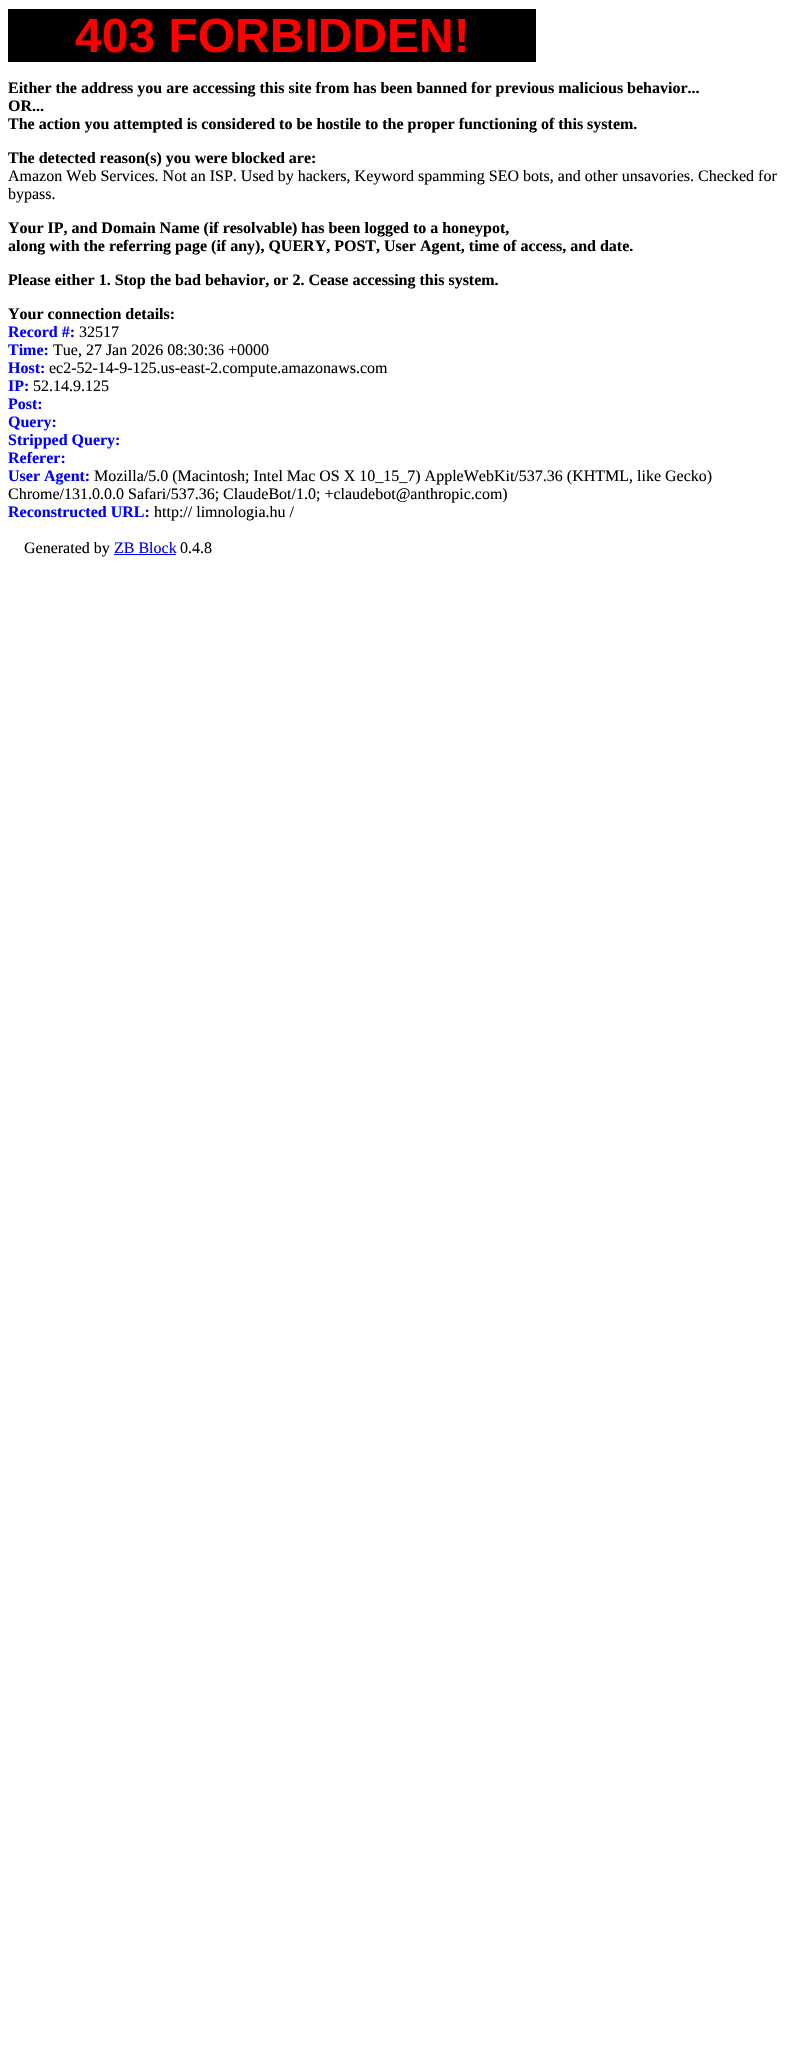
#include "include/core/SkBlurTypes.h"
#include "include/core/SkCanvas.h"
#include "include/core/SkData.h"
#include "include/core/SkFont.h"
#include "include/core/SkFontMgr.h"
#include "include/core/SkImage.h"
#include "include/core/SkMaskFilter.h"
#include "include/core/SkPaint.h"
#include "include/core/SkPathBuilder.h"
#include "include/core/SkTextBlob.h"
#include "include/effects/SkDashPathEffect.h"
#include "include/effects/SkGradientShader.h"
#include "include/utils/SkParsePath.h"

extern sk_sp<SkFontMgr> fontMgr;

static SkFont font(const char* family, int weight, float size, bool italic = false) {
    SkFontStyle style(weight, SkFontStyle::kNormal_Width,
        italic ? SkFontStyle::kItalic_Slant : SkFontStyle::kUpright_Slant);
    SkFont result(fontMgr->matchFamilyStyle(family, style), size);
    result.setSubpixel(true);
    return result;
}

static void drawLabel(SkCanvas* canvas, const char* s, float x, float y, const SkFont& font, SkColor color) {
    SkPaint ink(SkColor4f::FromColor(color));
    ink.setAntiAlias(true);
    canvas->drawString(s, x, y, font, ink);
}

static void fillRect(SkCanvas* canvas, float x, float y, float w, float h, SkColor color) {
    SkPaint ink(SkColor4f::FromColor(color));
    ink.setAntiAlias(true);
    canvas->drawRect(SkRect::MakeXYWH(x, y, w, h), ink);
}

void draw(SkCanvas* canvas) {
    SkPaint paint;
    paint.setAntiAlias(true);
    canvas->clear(0xFFFFFFFF);
    fillRect(canvas, 8, 9, 528, 53, 0xFF000000);
    SkFont font1 = font("Liberation Sans", 700, 48);
    drawLabel(canvas, "403 FORBIDDEN!", 75, 52, font1, 0xFFFF0000);
    SkFont font2 = font("Liberation Serif", 700, 16);
    drawLabel(canvas, "Either the address you are accessing this site from has been banned for previous malicious behavior...", 8, 93, font2, 0xFF000000);
    drawLabel(canvas, "OR...", 8, 111, font2, 0xFF000000);
    drawLabel(canvas, "The action you attempted is considered to be hostile to the proper functioning of this system.", 8, 129, font2, 0xFF000000);
    drawLabel(canvas, "The detected reason(s) you were blocked are:", 8, 163, font2, 0xFF000000);
    SkFont font3 = font("Liberation Serif", 400, 16);
    drawLabel(canvas, "Amazon Web Services. Not an ISP. Used by hackers, Keyword spamming SEO bots, and other unsavories. Checked for", 8, 181, font3, 0xFF000000);
    drawLabel(canvas, "bypass.", 8, 199, font3, 0xFF000000);
    drawLabel(canvas, "Your IP, and Domain Name (if resolvable) has been logged to a honeypot,", 8, 233, font2, 0xFF000000);
    drawLabel(canvas, "along with the referring page (if any), QUERY, POST, User Agent, time of access, and date.", 8, 251, font2, 0xFF000000);
    drawLabel(canvas, "Please either 1. Stop the bad behavior, or 2. Cease accessing this system.", 8, 285, font2, 0xFF000000);
    drawLabel(canvas, "Your connection details:", 8, 319, font2, 0xFF000000);
    drawLabel(canvas, "Record #:", 8, 337, font2, 0xFF0000FF);
    drawLabel(canvas, "32517", 79, 337, font3, 0xFF000000);
    drawLabel(canvas, "Time:", 8, 355, font2, 0xFF0000FF);
    drawLabel(canvas, "Tue, 27 Jan 2026 08:30:36 +0000", 53, 355, font3, 0xFF000000);
    drawLabel(canvas, "Host:", 8, 373, font2, 0xFF0000FF);
    drawLabel(canvas, "ec2-52-14-9-125.us-east-2.compute.amazonaws.com", 49, 373, font3, 0xFF000000);
    drawLabel(canvas, "IP:", 8, 391, font2, 0xFF0000FF);
    drawLabel(canvas, "52.14.9.125", 33, 391, font3, 0xFF000000);
    drawLabel(canvas, "Post:", 8, 409, font2, 0xFF0000FF);
    drawLabel(canvas, "Query:", 8, 427, font2, 0xFF0000FF);
    drawLabel(canvas, "Stripped Query:", 8, 445, font2, 0xFF0000FF);
    drawLabel(canvas, "Referer:", 8, 463, font2, 0xFF0000FF);
    drawLabel(canvas, "User Agent:", 8, 481, font2, 0xFF0000FF);
    drawLabel(canvas, "Mozilla/5.0 (Macintosh; Intel Mac OS X 10_15_7) AppleWebKit/537.36 (KHTML, like Gecko)", 94, 481, font3, 0xFF000000);
    drawLabel(canvas, "Chrome/131.0.0.0 Safari/537.36; ClaudeBot/1.0; +claudebot@anthropic.com)", 8, 499, font3, 0xFF000000);
    drawLabel(canvas, "Reconstructed URL:", 8, 517, font2, 0xFF0000FF);
    drawLabel(canvas, "http:// limnologia.hu /", 154, 517, font3, 0xFF000000);
    drawLabel(canvas, "Generated by", 24, 553, font3, 0xFF000000);
    drawLabel(canvas, "ZB Block", 114, 553, font3, 0xFF0000EE);
    fillRect(canvas, 114, 554, 62, 1, 0xFF0000EE);
    drawLabel(canvas, "0.4.8", 180, 553, font3, 0xFF000000);
}
